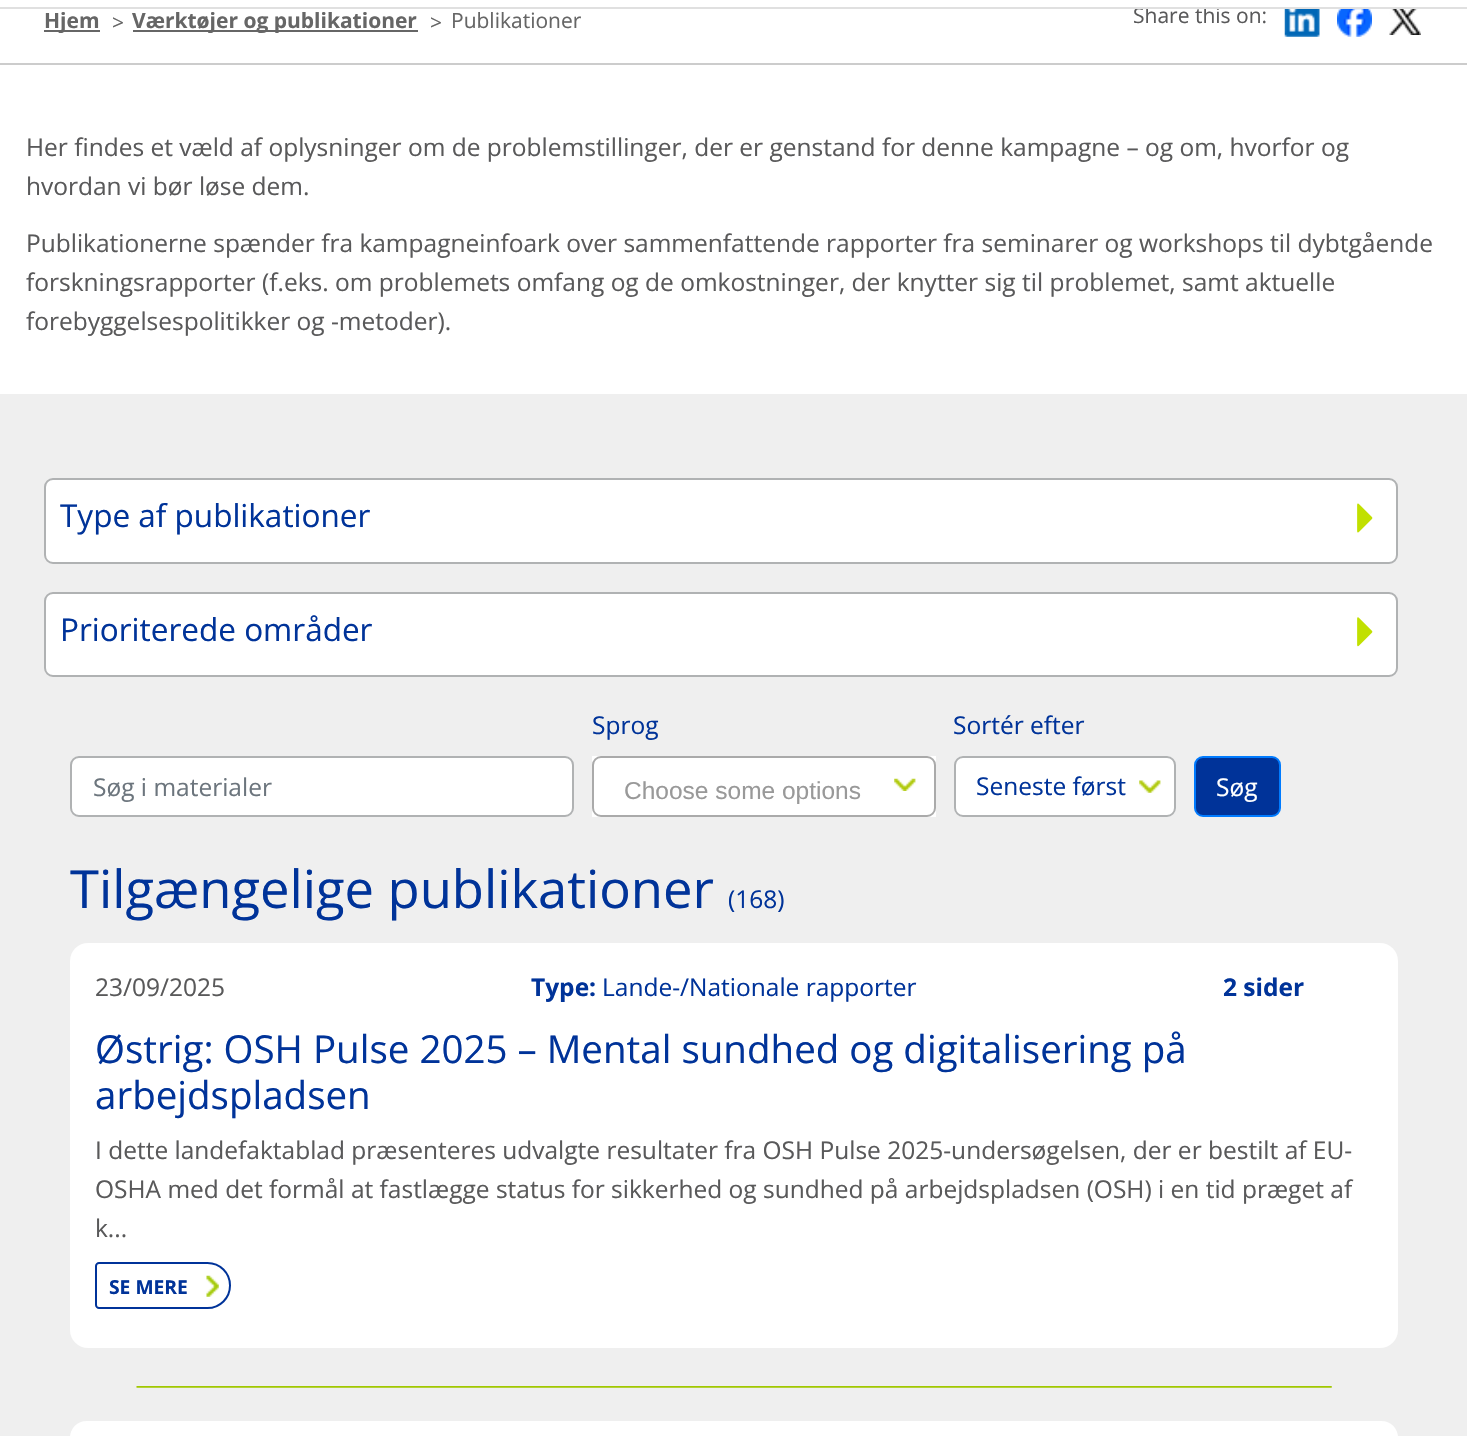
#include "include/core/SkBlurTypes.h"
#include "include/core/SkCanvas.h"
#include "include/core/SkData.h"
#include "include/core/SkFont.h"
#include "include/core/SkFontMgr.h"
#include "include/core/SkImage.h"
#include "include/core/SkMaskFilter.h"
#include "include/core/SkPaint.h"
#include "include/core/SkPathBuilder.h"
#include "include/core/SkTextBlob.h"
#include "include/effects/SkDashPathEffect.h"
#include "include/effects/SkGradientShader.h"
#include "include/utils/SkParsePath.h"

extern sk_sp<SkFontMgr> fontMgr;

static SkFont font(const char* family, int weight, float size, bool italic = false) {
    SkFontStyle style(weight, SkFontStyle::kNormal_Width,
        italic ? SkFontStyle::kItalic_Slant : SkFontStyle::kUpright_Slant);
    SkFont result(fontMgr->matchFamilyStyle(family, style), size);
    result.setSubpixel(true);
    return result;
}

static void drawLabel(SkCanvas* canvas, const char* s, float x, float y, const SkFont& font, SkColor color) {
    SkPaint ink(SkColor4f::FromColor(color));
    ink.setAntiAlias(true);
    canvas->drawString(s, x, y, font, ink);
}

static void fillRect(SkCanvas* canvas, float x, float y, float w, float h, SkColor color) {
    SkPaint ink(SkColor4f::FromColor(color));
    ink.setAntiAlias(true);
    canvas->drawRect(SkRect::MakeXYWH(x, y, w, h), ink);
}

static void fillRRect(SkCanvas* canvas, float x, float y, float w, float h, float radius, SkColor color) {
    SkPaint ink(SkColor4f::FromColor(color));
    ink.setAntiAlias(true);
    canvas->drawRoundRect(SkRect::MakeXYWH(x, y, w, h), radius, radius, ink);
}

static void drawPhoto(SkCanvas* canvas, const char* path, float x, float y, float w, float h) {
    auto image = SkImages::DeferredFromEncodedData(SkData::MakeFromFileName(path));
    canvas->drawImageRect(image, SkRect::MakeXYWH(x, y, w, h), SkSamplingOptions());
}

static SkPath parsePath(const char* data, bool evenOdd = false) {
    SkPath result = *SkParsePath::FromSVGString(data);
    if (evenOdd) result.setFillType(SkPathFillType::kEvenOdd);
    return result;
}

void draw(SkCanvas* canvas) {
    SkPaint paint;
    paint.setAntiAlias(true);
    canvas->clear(0xFFFFFFFF);
    SkFont font1 = font("Open Sans", 400, 21);
    drawLabel(canvas, "Share this on:", 1133, 23, font1, 0xFF59595A);
    fillRect(canvas, 0, 7, 1467, 2, 0xFFE0E0E0);
    fillRect(canvas, 44, 30, 56, 2, 0xFF666666);
    SkFont font2 = font("Open Sans", 700, 21);
    drawLabel(canvas, "Hjem", 44, 28, font2, 0xFF666666);
    drawLabel(canvas, ">", 112, 30, font1, 0xFF666666);
    fillRect(canvas, 133, 30, 285, 2, 0xFF666666);
    drawLabel(canvas, "Værktøjer og publikationer", 132, 28, font2, 0xFF666666);
    drawLabel(canvas, ">", 430, 30, font1, 0xFF666666);
    drawLabel(canvas, "Publikationer", 451, 28, font1, 0xFF666666);
    drawPhoto(canvas, "assets/img1.png", 1284, 9, 36, 28);
    drawPhoto(canvas, "assets/img2.png", 1337, 9, 35, 28);
    drawPhoto(canvas, "assets/img3.png", 1389, 9, 32, 26);
    fillRect(canvas, 0, 63, 1467, 2, 0xFFCCCCCC);
    SkFont font3 = font("Open Sans", 400, 24.5f);
    drawLabel(canvas, "Her findes et væld af oplysninger om de problemstillinger, der er genstand for denne kampagne – og om, hvorfor og", 26, 156, font3, 0xFF59595A);
    drawLabel(canvas, "hvordan vi bør løse dem.", 26, 195, font3, 0xFF59595A);
    drawLabel(canvas, "Publikationerne spænder fra kampagneinfoark over sammenfattende rapporter fra seminarer og workshops til dybtgående", 26, 252, font3, 0xFF59595A);
    drawLabel(canvas, "forskningsrapporter (f.eks. om problemets omfang og de omkostninger, der knytter sig til problemet, samt aktuelle", 26, 291, font3, 0xFF59595A);
    drawLabel(canvas, "forebyggelsespolitikker og -metoder).", 26, 330, font3, 0xFF59595A);
    fillRect(canvas, 0, 394, 1467, 1042, 0xFFEFEFEF);
    paint.setColor(0xFFFFFFFF);
    canvas->drawRoundRect(SkRect::MakeXYWH(45, 479, 1352, 84), 8, 8, paint);
    paint.setStroke(true);
    paint.setStrokeWidth(2);
    paint.setColor(0xFFB0B2B3);
    canvas->drawRoundRect(SkRect::MakeXYWH(45, 479, 1352, 84), 8, 8, paint);
    SkFont font4 = font("Open Sans", 400, 31.5f);
    drawLabel(canvas, "Type af publikationer", 60, 527, font4, 0xFF003399);
    drawPhoto(canvas, "assets/img4.png", 1357, 503, 16, 30);
    paint.setStroke(false);
    paint.setColor(0xFFFFFFFF);
    canvas->drawRoundRect(SkRect::MakeXYWH(45, 593, 1352, 83), 8, 8, paint);
    paint.setStroke(true);
    paint.setColor(0xFFB0B2B3);
    canvas->drawRoundRect(SkRect::MakeXYWH(45, 593, 1352, 83), 8, 8, paint);
    drawLabel(canvas, "Prioriterede områder", 60, 641, font4, 0xFF003399);
    drawPhoto(canvas, "assets/img5.png", 1357, 617, 16, 30);
    paint.setStroke(false);
    paint.setColor(0xFFFFFFFF);
    canvas->drawRoundRect(SkRect::MakeXYWH(71, 757, 502, 59), 8, 8, paint);
    paint.setStroke(true);
    paint.setColor(0xFFB0B2B3);
    canvas->drawRoundRect(SkRect::MakeXYWH(71, 757, 502, 59), 8, 8, paint);
    drawLabel(canvas, "Søg i materialer", 93, 796, font3, 0xFF6C757D);
    drawLabel(canvas, "Sprog", 592, 734, font3, 0xFF003399);
    fillRect(canvas, 592, 756, 344, 61, 0xFFFFFFFF);
    drawPhoto(canvas, "assets/img6.png", 894, 778, 22, 13);
    paint.setColor(0xFFAAAAAA);
    canvas->drawRoundRect(SkRect::MakeXYWH(593, 757, 342, 59), 8, 8, paint);
    SkFont font5 = font("Liberation Sans", 400, 24.5f);
    drawLabel(canvas, "Choose some options", 624, 799, font5, 0xFF999999);
    drawLabel(canvas, "Sortér efter", 953, 734, font3, 0xFF003399);
    fillRRect(canvas, 954, 756, 222, 61, 9, 0xFFFFFFFF);
    drawPhoto(canvas, "assets/img7.png", 1139, 780, 22, 13);
    paint.setColor(0xFFB0B2B3);
    canvas->drawRoundRect(SkRect::MakeXYWH(955, 757, 220, 59), 8, 8, paint);
    drawLabel(canvas, "Seneste først", 976, 795, font3, 0xFF003399);
    paint.setStroke(false);
    paint.setColor(0xFF003399);
    canvas->drawRoundRect(SkRect::MakeXYWH(1195, 757, 85, 59), 8, 8, paint);
    paint.setStroke(true);
    paint.setColor(0xFF007BFF);
    canvas->drawRoundRect(SkRect::MakeXYWH(1195, 757, 85, 59), 8, 8, paint);
    drawLabel(canvas, "Søg", 1216, 796, font3, 0xFFFFFFFF);
    SkFont font6 = font("Open Sans", 400, 52.5f);
    drawLabel(canvas, "Tilgængelige publikationer", 70, 908, font6, 0xFF003399);
    drawLabel(canvas, "(168)", 728, 908, font3, 0xFF003399);
    fillRRect(canvas, 70, 943, 1328, 405, 18, 0xFFFFFFFF);
    drawLabel(canvas, "23/09/2025", 95, 996, font3, 0xFF59595A);
    SkFont font7 = font("Open Sans", 700, 24.5f);
    drawLabel(canvas, "Type:", 531, 996, font7, 0xFF003399);
    drawLabel(canvas, "Lande-/Nationale rapporter", 602, 996, font3, 0xFF003399);
    drawLabel(canvas, "2 sider", 1223, 996, font7, 0xFF003399);
    SkFont font8 = font("Open Sans", 400, 38.5f);
    drawLabel(canvas, "Østrig: OSH Pulse 2025 – Mental sundhed og digitalisering på", 95, 1063, font8, 0xFF003399);
    drawLabel(canvas, "arbejdspladsen", 95, 1109, font8, 0xFF003399);
    drawLabel(canvas, "I dette landefaktablad præsenteres udvalgte resultater fra OSH Pulse 2025-undersøgelsen, der er bestilt af EU-", 95, 1159, font3, 0xFF59595A);
    drawLabel(canvas, "OSHA med det formål at fastlægge status for sikkerhed og sundhed på arbejdspladsen (OSH) i en tid præget af", 95, 1198, font3, 0xFF59595A);
    drawLabel(canvas, "k...", 95, 1237, font3, 0xFF59595A);
    drawPhoto(canvas, "assets/img8.png", 206, 1275, 13, 22);
    paint.setColor(0xFF003399);
    canvas->drawPath(parsePath("M99 1263H207.5C220 1263 230 1273 230 1285.5C230 1298 220 1308 207.5 1308H99C97.5 1308 96 1306.5 96 1305V1266C96 1264.5 97.5 1263 99 1263Z"), paint);
    SkFont font9 = font("Open Sans", 700, 19.25f);
    drawLabel(canvas, "SE MERE", 109, 1294, font9, 0xFF003399);
    drawPhoto(canvas, "assets/img9.png", 136, 1386, 1196, 2);
    fillRRect(canvas, 70, 1421, 1328, 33, 18, 0xFFFFFFFF);
}
